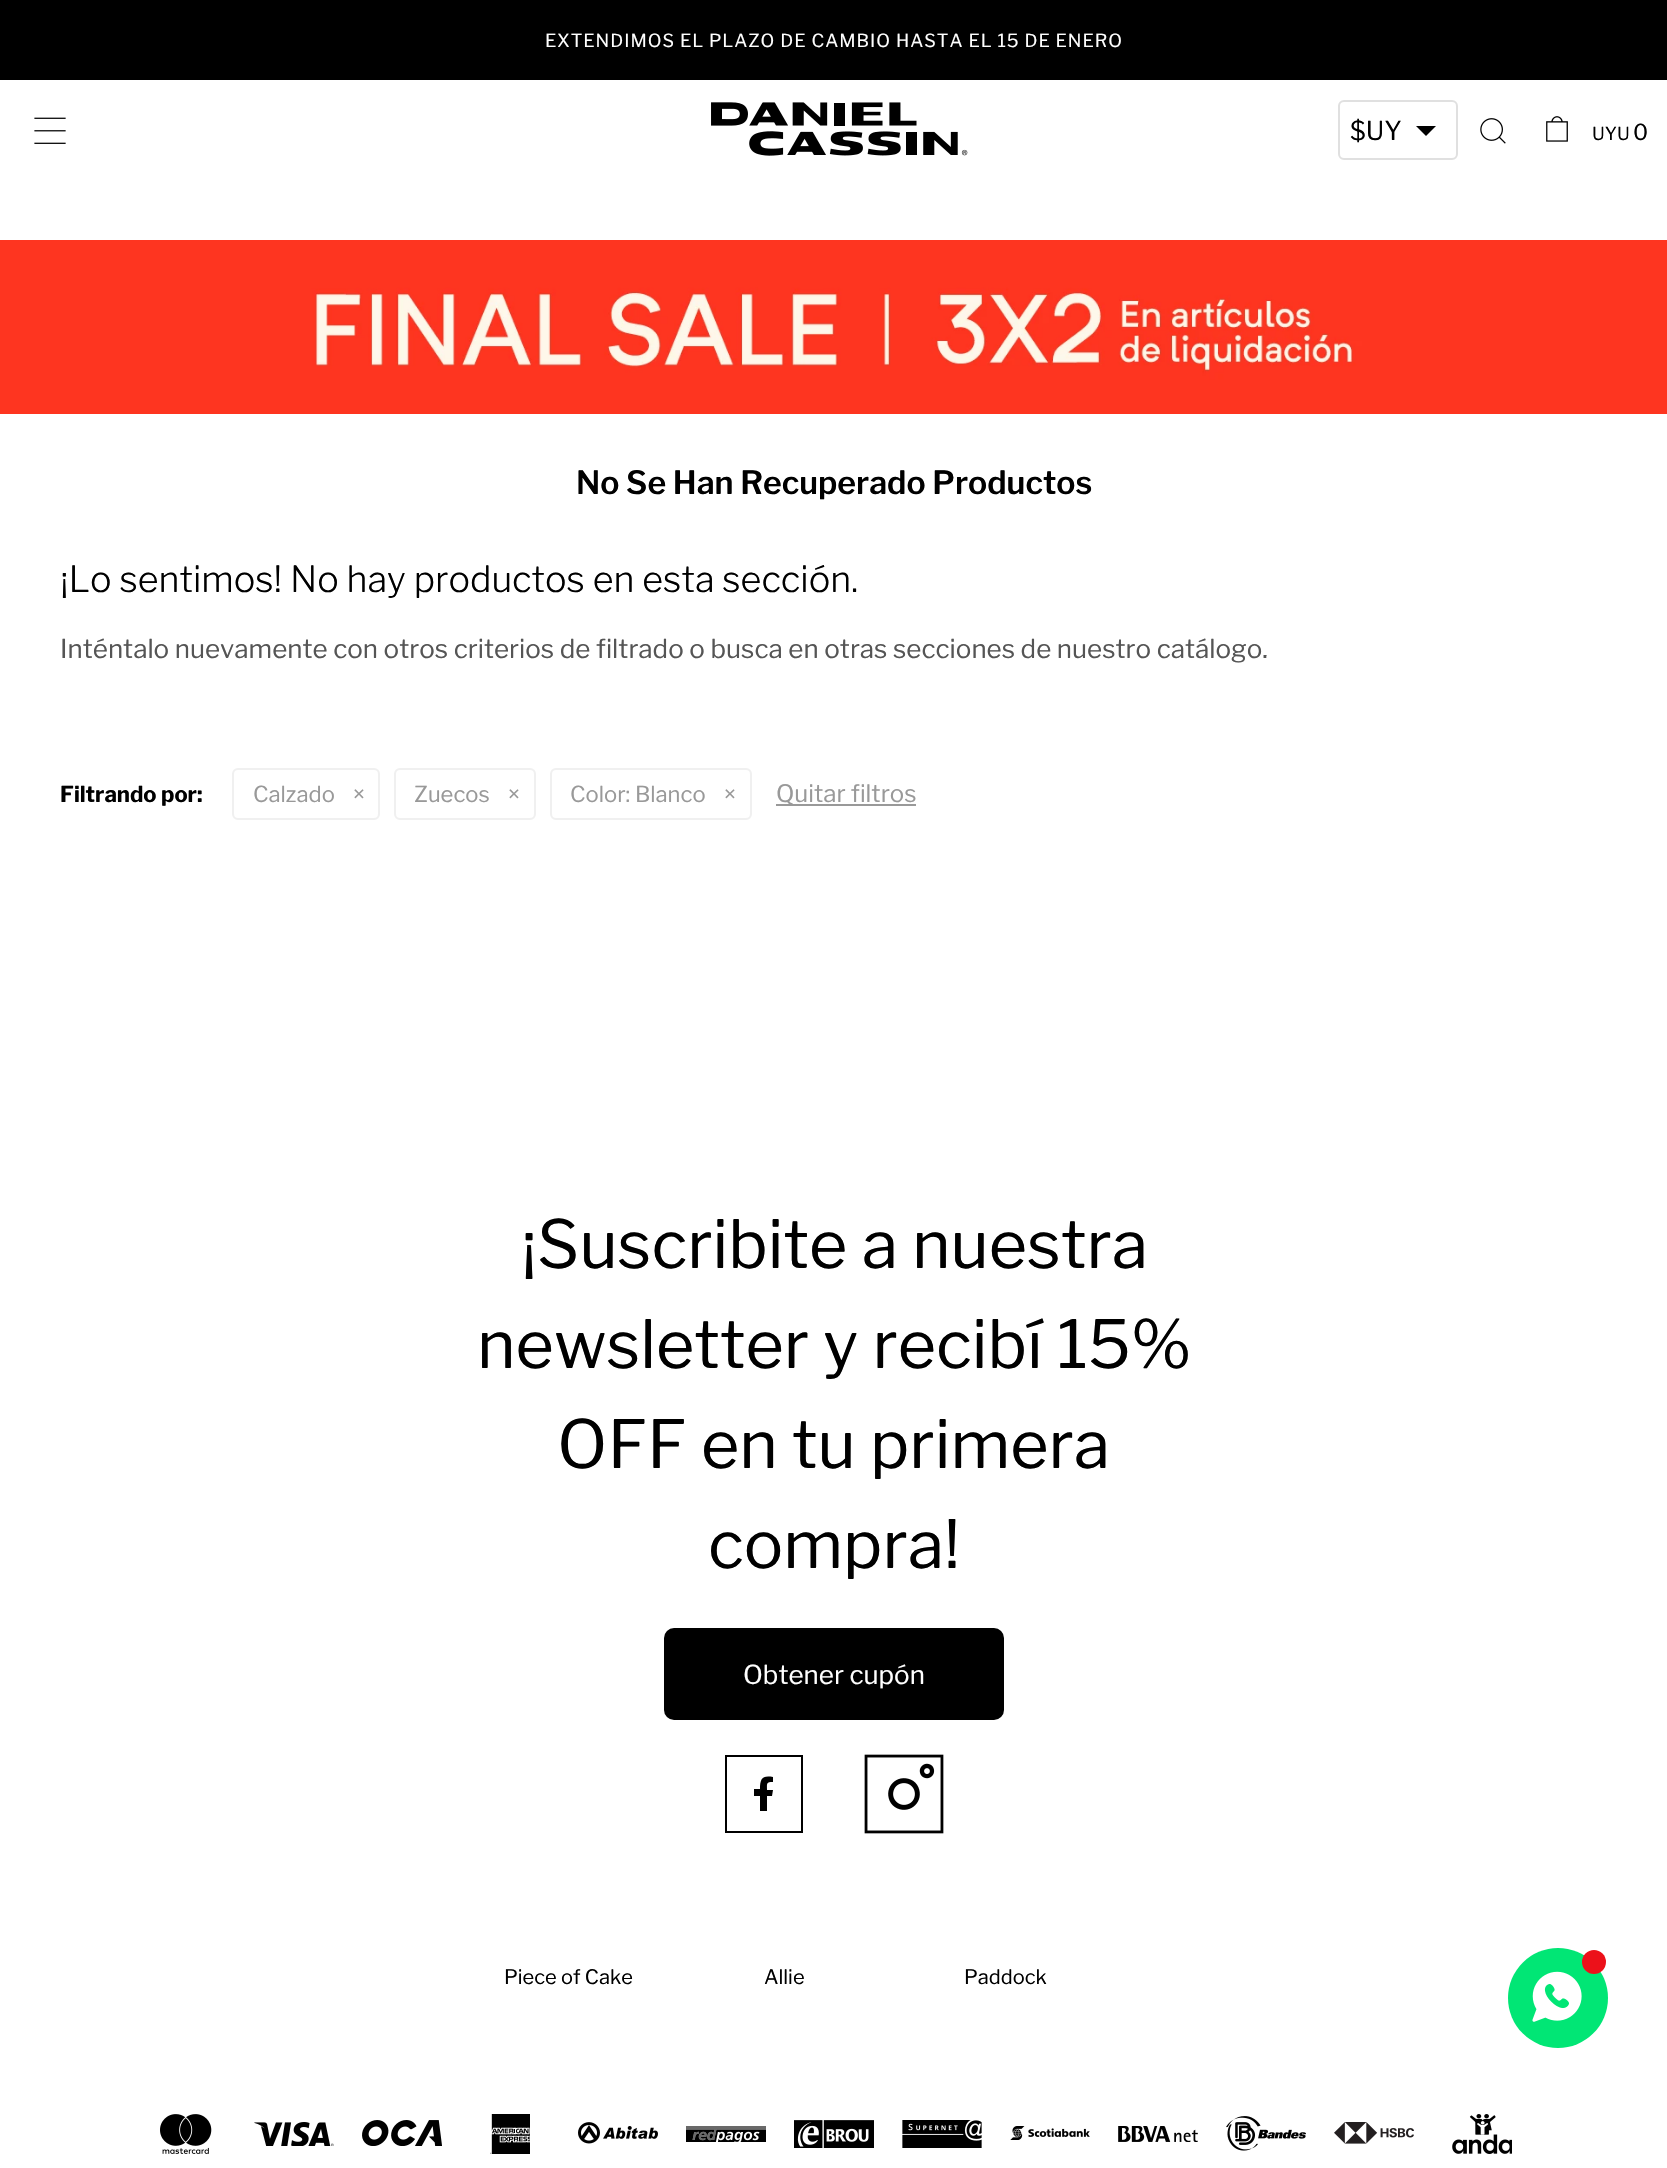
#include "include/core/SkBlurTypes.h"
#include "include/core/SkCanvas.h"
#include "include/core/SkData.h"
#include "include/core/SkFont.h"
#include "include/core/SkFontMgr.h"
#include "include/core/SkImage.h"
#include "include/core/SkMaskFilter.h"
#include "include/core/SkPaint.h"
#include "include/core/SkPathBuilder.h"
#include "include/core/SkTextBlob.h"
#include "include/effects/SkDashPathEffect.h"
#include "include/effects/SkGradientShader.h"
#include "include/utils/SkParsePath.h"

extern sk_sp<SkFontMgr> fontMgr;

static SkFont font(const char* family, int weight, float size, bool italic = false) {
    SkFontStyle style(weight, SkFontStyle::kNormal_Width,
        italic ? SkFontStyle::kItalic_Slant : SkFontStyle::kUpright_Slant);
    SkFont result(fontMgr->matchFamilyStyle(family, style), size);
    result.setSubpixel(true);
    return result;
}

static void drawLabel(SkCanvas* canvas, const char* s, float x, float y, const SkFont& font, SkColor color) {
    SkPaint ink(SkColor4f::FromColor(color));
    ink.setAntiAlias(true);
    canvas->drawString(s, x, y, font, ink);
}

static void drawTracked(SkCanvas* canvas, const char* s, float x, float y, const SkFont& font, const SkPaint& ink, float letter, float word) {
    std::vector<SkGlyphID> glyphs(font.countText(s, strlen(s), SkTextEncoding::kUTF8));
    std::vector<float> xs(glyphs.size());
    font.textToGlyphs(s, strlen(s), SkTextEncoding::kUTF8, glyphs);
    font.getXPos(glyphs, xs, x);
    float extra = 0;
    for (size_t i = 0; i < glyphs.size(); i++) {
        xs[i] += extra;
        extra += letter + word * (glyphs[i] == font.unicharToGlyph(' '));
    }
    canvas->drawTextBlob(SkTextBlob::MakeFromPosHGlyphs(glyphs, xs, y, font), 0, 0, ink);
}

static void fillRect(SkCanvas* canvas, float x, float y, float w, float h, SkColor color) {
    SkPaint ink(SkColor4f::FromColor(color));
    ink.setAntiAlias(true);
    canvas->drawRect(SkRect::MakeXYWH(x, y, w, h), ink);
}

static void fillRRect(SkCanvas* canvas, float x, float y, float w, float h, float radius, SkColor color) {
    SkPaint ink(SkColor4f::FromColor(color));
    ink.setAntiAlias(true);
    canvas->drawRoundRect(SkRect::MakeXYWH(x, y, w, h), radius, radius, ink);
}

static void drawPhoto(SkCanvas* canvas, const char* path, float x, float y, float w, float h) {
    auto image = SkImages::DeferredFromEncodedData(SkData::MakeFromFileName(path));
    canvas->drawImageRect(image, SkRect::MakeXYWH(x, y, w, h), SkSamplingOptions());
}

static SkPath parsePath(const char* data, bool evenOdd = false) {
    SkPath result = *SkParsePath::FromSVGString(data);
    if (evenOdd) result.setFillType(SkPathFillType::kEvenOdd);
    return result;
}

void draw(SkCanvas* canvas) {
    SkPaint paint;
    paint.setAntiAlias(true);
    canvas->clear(0xFFFFFFFF);
    fillRect(canvas, 0, 0, 1667, 80, 0xFF000000);
    SkFont font1 = font("Libre Franklin", 400, 18);
    paint.setColor(0xFFFFFFFF);
    drawTracked(canvas, "EXTENDIMOS EL PLAZO DE CAMBIO HASTA EL 15 DE ENERO", 545, 47, font1, paint, 1, 0);
    drawPhoto(canvas, "assets/img1.png", 34, 117, 32, 27);
    drawPhoto(canvas, "assets/img2.png", 711, 102, 257, 54);
    paint.setColor(0xFF000000);
    canvas->drawPath(parsePath("M1416 126L1426 136L1436 126Z"), paint);
    paint.setStroke(true);
    paint.setStrokeWidth(2);
    paint.setColor(0xFFE0E0E0);
    canvas->drawRoundRect(SkRect::MakeXYWH(1339, 101, 118, 58), 5, 5, paint);
    SkFont font2 = font("Libre Franklin", 400, 26);
    drawLabel(canvas, "$UY", 1350, 140, font2, 0xFF000000);
    drawPhoto(canvas, "assets/img3.png", 1480, 118, 26, 26);
    drawPhoto(canvas, "assets/img4.png", 1546, 116, 22, 26);
    drawLabel(canvas, "UYU", 1592, 140, font1, 0xFF000000);
    SkFont font3 = font("Libre Franklin", 400, 22);
    drawLabel(canvas, "0", 1633, 140, font3, 0xFF000000);
    drawPhoto(canvas, "assets/img5.png", 0, 240, 1667, 174);
    SkFont font4 = font("Libre Franklin", 600, 32);
    drawLabel(canvas, "No Se Han Recuperado Productos", 576, 494, font4, 0xFF000000);
    SkFont font5 = font("Libre Franklin", 300, 36);
    drawLabel(canvas, "¡Lo sentimos! No hay productos en esta sección.", 60, 592, font5, 0xFF000000);
    drawLabel(canvas, "Inténtalo nuevamente con otros criterios de filtrado o busca en otras secciones de nuestro catálogo.", 60, 658, font2, 0xFF555555);
    SkFont font6 = font("Libre Franklin", 700, 22);
    drawLabel(canvas, "Filtrando por:", 60, 802, font6, 0xFF000000);
    paint.setColor(0xFFF0F0F0);
    canvas->drawRoundRect(SkRect::MakeXYWH(233, 769, 146, 50), 5, 5, paint);
    drawLabel(canvas, "Calzado", 253, 802, font3, 0xFF999999);
    drawLabel(canvas, "×", 353, 802, font3, 0xFF999999);
    canvas->drawRoundRect(SkRect::MakeXYWH(395, 769, 140, 50), 5, 5, paint);
    drawLabel(canvas, "Zuecos", 414, 802, font3, 0xFF999999);
    drawLabel(canvas, "×", 508, 802, font3, 0xFF999999);
    canvas->drawRoundRect(SkRect::MakeXYWH(551, 769, 200, 50), 5, 5, paint);
    drawLabel(canvas, "Color: Blanco", 570, 802, font3, 0xFF999999);
    drawLabel(canvas, "×", 724, 802, font3, 0xFF999999);
    fillRect(canvas, 776, 804, 140, 2, 0xFF999999);
    SkFont font7 = font("Libre Franklin", 400, 24);
    drawLabel(canvas, "Quitar filtros", 776, 802, font7, 0xFF999999);
    SkFont font8 = font("Libre Franklin", 400, 66);
    drawLabel(canvas, "¡Suscribite a nuestra", 521, 1268, font8, 0xFF000000);
    drawLabel(canvas, "newsletter y recibí 15%", 477, 1368, font8, 0xFF000000);
    drawLabel(canvas, "OFF en tu primera", 557, 1468, font8, 0xFF000000);
    drawLabel(canvas, "compra!", 708, 1568, font8, 0xFF000000);
    fillRRect(canvas, 664, 1628, 340, 92, 10, 0xFF000000);
    drawLabel(canvas, "Obtener cupón", 743, 1684, font2, 0xFFFFFFFF);
    paint.setStroke(false);
    paint.setColor(0xFF000000);
    canvas->drawPath(parsePath("M803 1755V1833H725V1755ZM801 1757H727V1831H801ZM772 1796L773 1790H767C767 1783 766 1782 773 1782V1777C762 1775 760 1779 760 1789H754V1796H760V1811H767V1796Z"), paint);
    drawPhoto(canvas, "assets/img6.png", 864, 1754, 80, 80);
    SkFont font9 = font("Libre Franklin", 400, 20);
    drawLabel(canvas, "Piece of Cake", 504, 1984, font9, 0xFF000000);
    drawLabel(canvas, "Allie", 764, 1984, font9, 0xFF000000);
    drawLabel(canvas, "Paddock", 964, 1984, font9, 0xFF000000);
    drawPhoto(canvas, "assets/img7.png", 160, 2114, 52, 40);
    drawPhoto(canvas, "assets/img8.png", 254, 2122, 80, 24);
    drawPhoto(canvas, "assets/img9.png", 362, 2120, 80, 26);
    drawPhoto(canvas, "assets/img10.png", 490, 2114, 40, 40);
    drawPhoto(canvas, "assets/img11.png", 578, 2122, 80, 22);
    drawPhoto(canvas, "assets/img12.png", 686, 2126, 80, 16);
    drawPhoto(canvas, "assets/img13.png", 794, 2120, 80, 28);
    drawPhoto(canvas, "assets/img14.png", 902, 2120, 80, 28);
    drawPhoto(canvas, "assets/img15.png", 1010, 2126, 80, 14);
    drawPhoto(canvas, "assets/img16.png", 1118, 2126, 80, 16);
    drawPhoto(canvas, "assets/img17.png", 1226, 2116, 80, 35);
    drawPhoto(canvas, "assets/img18.png", 1334, 2122, 80, 22);
    drawPhoto(canvas, "assets/img19.png", 1452, 2114, 60, 40);
    paint.setColor(0xFF01E675);
    canvas->drawCircle(1558, 1998, 50, paint);
    paint.setColor(0xFFEC111A);
    canvas->drawCircle(1594, 1962, 12, paint);
    drawPhoto(canvas, "assets/img20.png", 1532, 1971, 50, 51);
}
